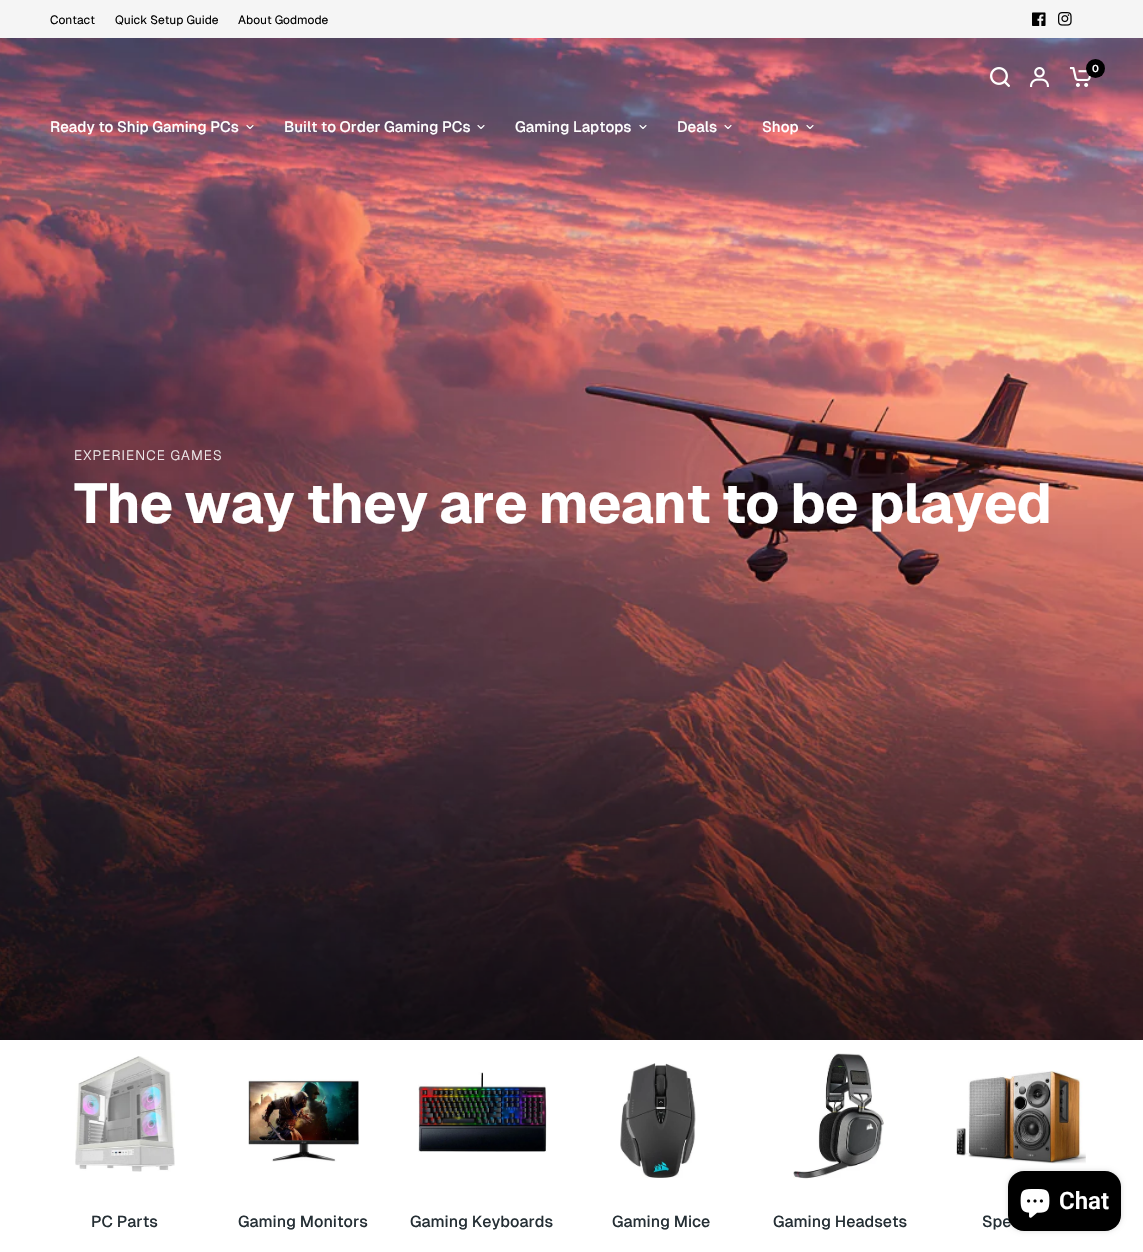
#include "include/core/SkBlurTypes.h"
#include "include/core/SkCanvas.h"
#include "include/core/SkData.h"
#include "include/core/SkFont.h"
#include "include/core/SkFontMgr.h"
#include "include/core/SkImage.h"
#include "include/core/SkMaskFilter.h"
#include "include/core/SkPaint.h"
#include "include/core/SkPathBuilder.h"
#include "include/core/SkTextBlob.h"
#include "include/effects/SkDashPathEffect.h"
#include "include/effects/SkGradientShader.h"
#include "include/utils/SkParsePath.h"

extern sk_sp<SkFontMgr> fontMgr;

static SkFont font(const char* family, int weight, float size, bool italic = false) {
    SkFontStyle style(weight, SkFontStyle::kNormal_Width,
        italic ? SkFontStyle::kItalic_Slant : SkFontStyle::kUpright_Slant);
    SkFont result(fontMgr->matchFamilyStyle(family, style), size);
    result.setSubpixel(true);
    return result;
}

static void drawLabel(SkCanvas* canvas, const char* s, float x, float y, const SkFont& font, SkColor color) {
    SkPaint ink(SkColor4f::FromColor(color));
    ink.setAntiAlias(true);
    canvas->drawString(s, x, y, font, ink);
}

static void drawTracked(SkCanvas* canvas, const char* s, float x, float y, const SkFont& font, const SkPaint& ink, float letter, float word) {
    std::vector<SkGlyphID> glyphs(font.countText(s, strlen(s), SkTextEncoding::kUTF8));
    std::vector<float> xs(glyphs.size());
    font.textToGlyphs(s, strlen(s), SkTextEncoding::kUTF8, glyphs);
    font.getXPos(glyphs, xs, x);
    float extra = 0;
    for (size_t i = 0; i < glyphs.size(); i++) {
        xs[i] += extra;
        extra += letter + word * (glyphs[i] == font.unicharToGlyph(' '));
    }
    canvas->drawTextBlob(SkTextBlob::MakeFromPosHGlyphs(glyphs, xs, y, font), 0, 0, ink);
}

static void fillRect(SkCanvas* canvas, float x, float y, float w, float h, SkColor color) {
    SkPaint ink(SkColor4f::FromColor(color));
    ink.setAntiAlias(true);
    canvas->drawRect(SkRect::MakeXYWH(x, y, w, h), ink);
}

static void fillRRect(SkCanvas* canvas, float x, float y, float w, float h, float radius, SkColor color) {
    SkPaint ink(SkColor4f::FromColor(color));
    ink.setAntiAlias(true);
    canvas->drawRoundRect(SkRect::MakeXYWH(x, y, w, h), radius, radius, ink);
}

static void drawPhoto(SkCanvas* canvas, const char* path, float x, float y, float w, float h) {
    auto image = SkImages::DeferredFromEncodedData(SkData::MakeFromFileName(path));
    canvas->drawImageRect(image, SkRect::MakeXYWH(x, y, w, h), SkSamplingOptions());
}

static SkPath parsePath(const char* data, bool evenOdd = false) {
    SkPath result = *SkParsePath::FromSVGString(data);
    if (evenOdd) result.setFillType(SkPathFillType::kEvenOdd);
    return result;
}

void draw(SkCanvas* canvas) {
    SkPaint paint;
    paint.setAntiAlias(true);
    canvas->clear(0xFFFFFFFF);
    fillRect(canvas, 0, 0, 1143, 38, 0xFFF5F5F5);
    SkFont font1 = font("Geist", 400, 12);
    drawLabel(canvas, "Contact", 50, 24, font1, 0xFF000000);
    drawLabel(canvas, "Quick Setup Guide", 115, 24, font1, 0xFF000000);
    drawLabel(canvas, "About Godmode", 238, 24, font1, 0xFF000000);
    drawPhoto(canvas, "assets/img1.png", 1032, 12, 14, 14);
    drawPhoto(canvas, "assets/img2.png", 1058, 12, 14, 14);
    drawPhoto(canvas, "assets/img6.png", 0, 38, 1143, 1002);
    drawPhoto(canvas, "assets/img3.png", 990, 67, 20, 20);
    drawPhoto(canvas, "assets/img4.png", 1030, 67, 19, 20);
    drawPhoto(canvas, "assets/img5.png", 1069, 67, 22, 20);
    paint.setColor(0xFF000000);
    canvas->drawCircle(1095.5f, 68.5f, 9.5f, paint);
    SkFont font2 = font("Geist", 600, 10);
    drawLabel(canvas, "0", 1092, 72, font2, 0xFFFFFFFF);
    SkFont font3 = font("Geist", 500, 15);
    drawLabel(canvas, "Ready to Ship Gaming PCs", 50, 132, font3, 0xFFFFFFFF);
    paint.setStroke(true);
    paint.setStrokeWidth(1.1f);
    paint.setStrokeCap(SkPaint::kRound_Cap);
    paint.setStrokeJoin(SkPaint::kRound_Join);
    paint.setColor(0xFFFFFFFF);
    canvas->drawPath(parsePath("M253 125.5L250 128.5L247 125.5"), paint);
    drawLabel(canvas, "Built to Order Gaming PCs", 284, 132, font3, 0xFFFFFFFF);
    canvas->drawPath(parsePath("M484 125.5L481 128.5L478 125.5"), paint);
    drawLabel(canvas, "Gaming Laptops", 515, 132, font3, 0xFFFFFFFF);
    canvas->drawPath(parsePath("M646 125.5L643 128.5L640 125.5"), paint);
    drawLabel(canvas, "Deals", 677, 132, font3, 0xFFFFFFFF);
    canvas->drawPath(parsePath("M731 125.5L728 128.5L725 125.5"), paint);
    drawLabel(canvas, "Shop", 762, 132, font3, 0xFFFFFFFF);
    canvas->drawPath(parsePath("M813 125.5L810 128.5L807 125.5"), paint);
    SkFont font4 = font("Geist", 300, 13.6f);
    paint.setStroke(false);
    paint.setColor(0xFFF0EBEC);
    drawTracked(canvas, "EXPERIENCE GAMES", 74, 460, font4, paint, 1.1f, 0);
    SkFont font5 = font("Geist", 700, 56);
    paint.setColor(0xFFFFFFFF);
    drawTracked(canvas, "The way they are meant to be played", 74, 523, font5, paint, -1.1f, 0);
    drawPhoto(canvas, "assets/img7.png", 75, 1056, 100, 116);
    SkFont font6 = font("Geist", 500, 16);
    drawLabel(canvas, "PC Parts", 91, 1227, font6, 0xFF252F35);
    drawPhoto(canvas, "assets/img8.png", 248, 1079, 111, 83);
    drawLabel(canvas, "Gaming Monitors", 238, 1227, font6, 0xFF252F35);
    drawPhoto(canvas, "assets/img9.png", 418, 1072, 129, 80);
    drawLabel(canvas, "Gaming Keyboards", 410, 1227, font6, 0xFF252F35);
    drawPhoto(canvas, "assets/img10.png", 620, 1063, 76, 115);
    drawLabel(canvas, "Gaming Mice", 612, 1227, font6, 0xFF252F35);
    drawPhoto(canvas, "assets/img11.png", 793, 1053, 91, 126);
    drawLabel(canvas, "Gaming Headsets", 773, 1227, font6, 0xFF252F35);
    drawPhoto(canvas, "assets/img12.png", 956, 1070, 130, 94);
    drawLabel(canvas, "Spe", 982, 1227, font6, 0xFF252F35);
    paint.setColor(0x26000000);
    paint.setMaskFilter(SkMaskFilter::MakeBlur(kNormal_SkBlurStyle, 2.5f));
    canvas->drawRoundRect(SkRect::MakeXYWH(1008, 1171, 113, 60), 16, 16, paint);
    paint.setMaskFilter(nullptr);
    fillRRect(canvas, 1008, 1171, 113, 60, 16, 0xFF000000);
    drawPhoto(canvas, "assets/img13.png", 1020, 1189, 30, 29);
    SkFont font7 = font("Roboto", 600, 24);
    drawLabel(canvas, "Chat", 1059, 1209, font7, 0xFFFFFFFF);
}
